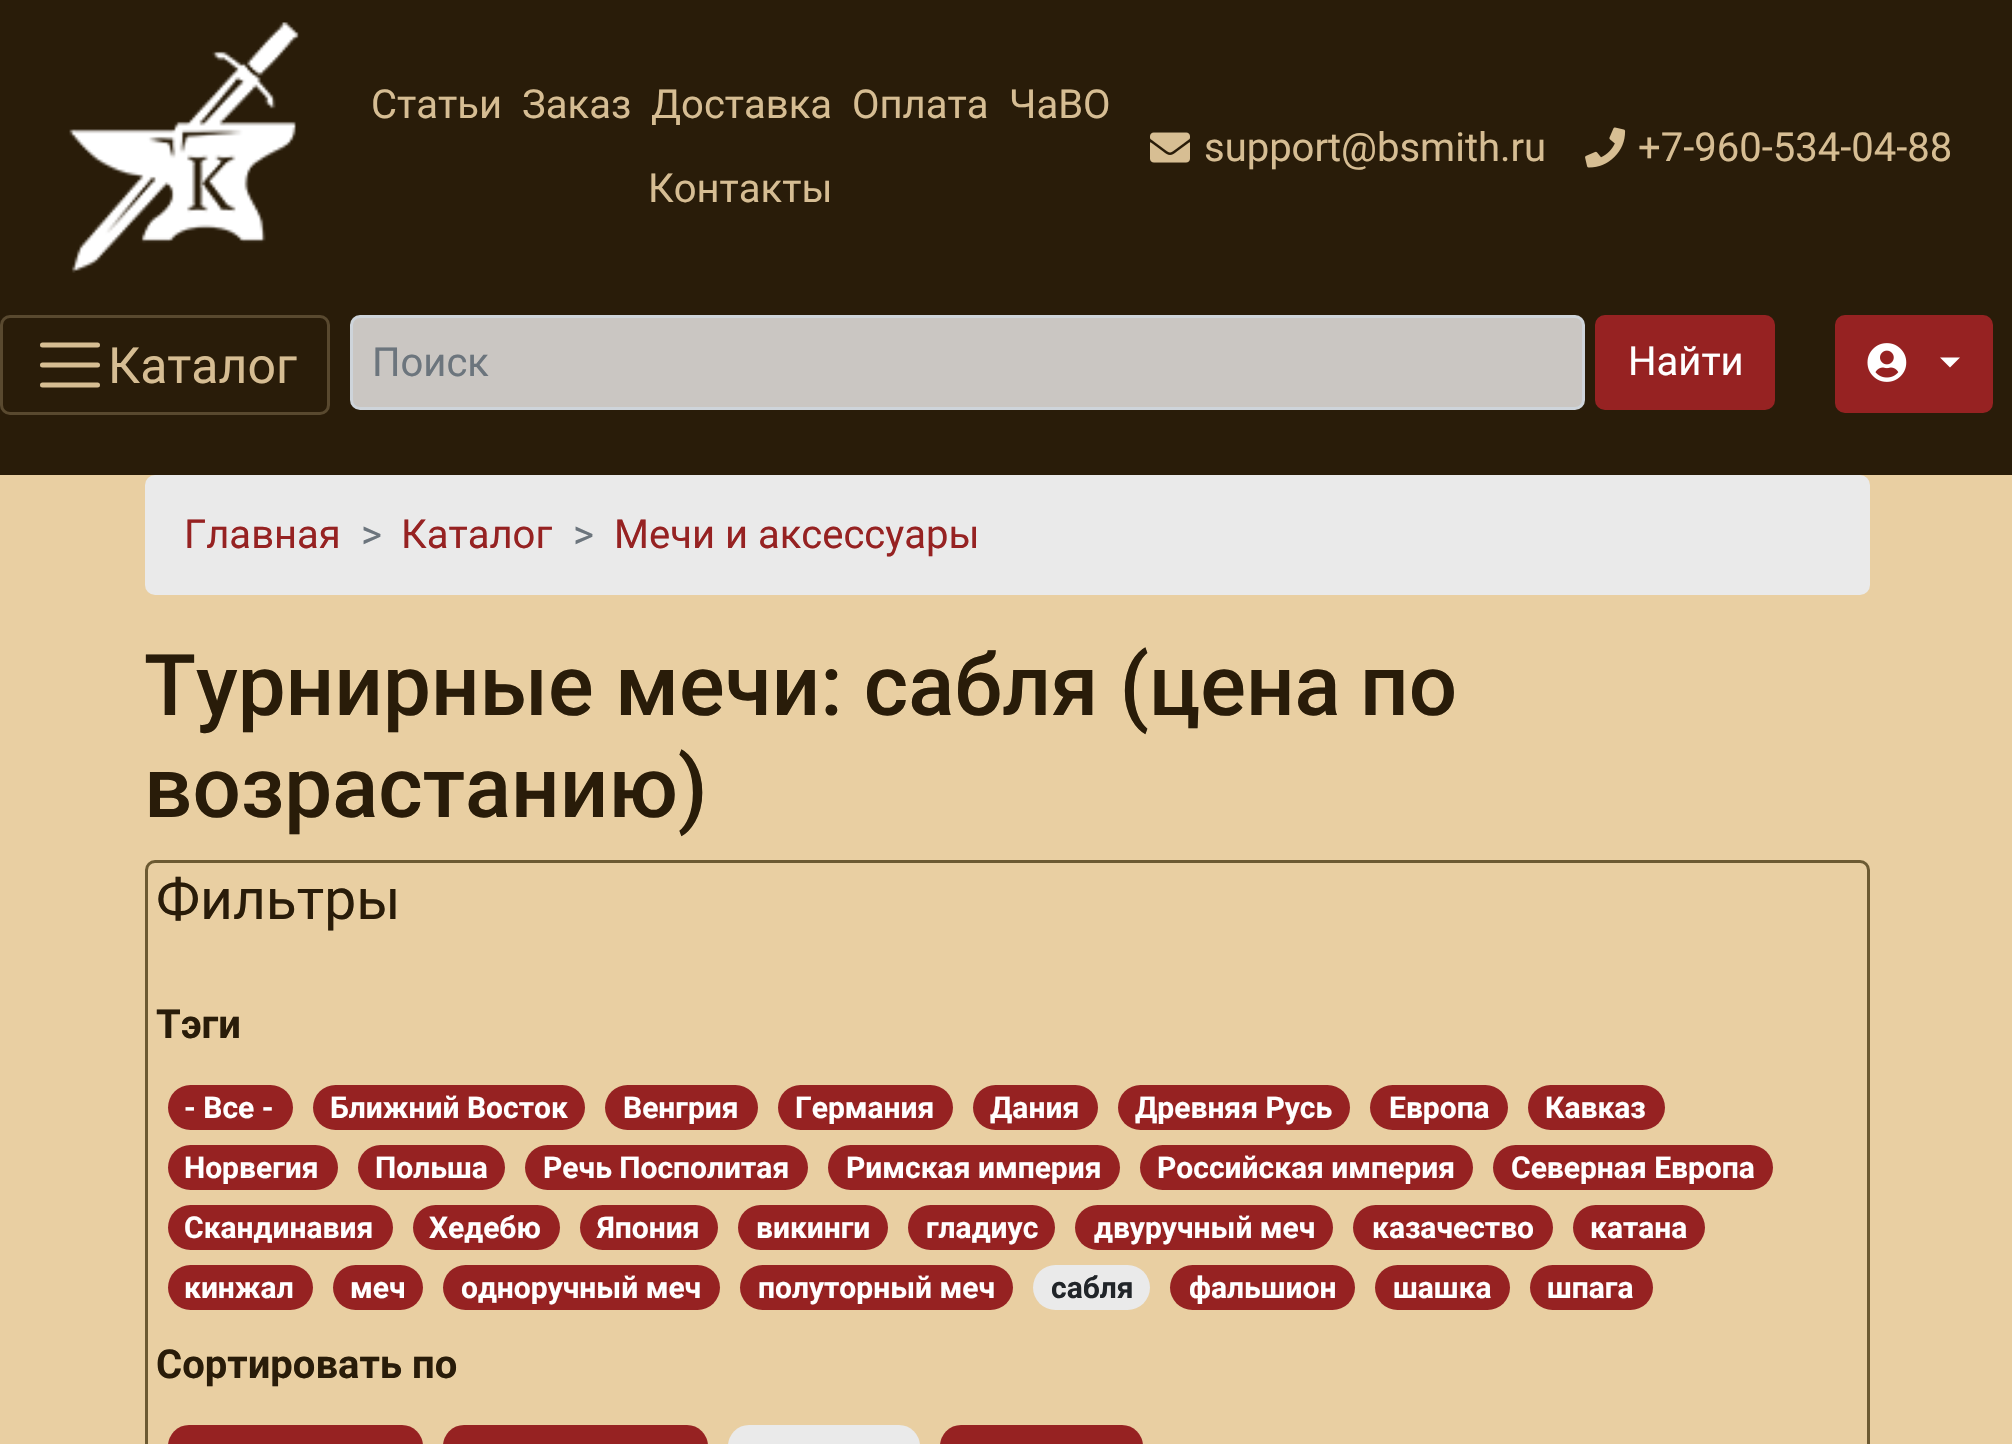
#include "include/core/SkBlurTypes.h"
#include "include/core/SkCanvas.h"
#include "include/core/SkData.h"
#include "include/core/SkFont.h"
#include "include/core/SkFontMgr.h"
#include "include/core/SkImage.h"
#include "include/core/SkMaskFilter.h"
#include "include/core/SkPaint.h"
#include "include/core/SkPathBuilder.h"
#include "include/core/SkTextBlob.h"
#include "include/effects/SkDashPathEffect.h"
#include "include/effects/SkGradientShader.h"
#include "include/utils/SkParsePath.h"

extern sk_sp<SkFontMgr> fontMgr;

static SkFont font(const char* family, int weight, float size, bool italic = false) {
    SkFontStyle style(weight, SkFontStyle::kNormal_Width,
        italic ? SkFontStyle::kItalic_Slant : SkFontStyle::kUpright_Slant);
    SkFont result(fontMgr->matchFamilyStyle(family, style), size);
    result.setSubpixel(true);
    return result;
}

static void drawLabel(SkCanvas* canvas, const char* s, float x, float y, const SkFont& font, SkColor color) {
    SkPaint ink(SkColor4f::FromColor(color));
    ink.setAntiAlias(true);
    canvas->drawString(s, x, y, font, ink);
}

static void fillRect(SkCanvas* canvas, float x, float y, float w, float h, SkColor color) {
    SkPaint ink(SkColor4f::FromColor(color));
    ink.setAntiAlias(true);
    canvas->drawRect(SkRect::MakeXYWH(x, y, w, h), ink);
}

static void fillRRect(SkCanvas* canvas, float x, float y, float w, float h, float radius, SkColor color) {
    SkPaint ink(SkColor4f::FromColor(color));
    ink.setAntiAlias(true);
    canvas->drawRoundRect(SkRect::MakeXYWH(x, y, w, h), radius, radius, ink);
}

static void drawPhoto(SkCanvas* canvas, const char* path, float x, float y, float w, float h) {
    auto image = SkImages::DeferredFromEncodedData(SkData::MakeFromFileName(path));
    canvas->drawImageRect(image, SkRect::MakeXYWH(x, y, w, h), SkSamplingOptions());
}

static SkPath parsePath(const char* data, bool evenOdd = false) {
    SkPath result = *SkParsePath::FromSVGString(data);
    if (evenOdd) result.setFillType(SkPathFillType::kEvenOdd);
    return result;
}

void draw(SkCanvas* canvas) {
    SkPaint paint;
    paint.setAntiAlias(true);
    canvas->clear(0xFFE9CFA2);
    fillRect(canvas, 0, 0, 2012, 475, 0xFF291C09);
    drawPhoto(canvas, "assets/img1.png", 69, 22, 230, 251);
    SkFont font1 = font("Roboto", 400, 40);
    drawLabel(canvas, "Статьи", 371, 118, font1, 0xFFD6BD93);
    drawLabel(canvas, "Заказ", 522, 118, font1, 0xFFD6BD93);
    drawLabel(canvas, "Доставка", 651, 118, font1, 0xFFD6BD93);
    drawLabel(canvas, "Оплата", 852, 118, font1, 0xFFD6BD93);
    drawLabel(canvas, "ЧаВО", 1009, 118, font1, 0xFFD6BD93);
    drawLabel(canvas, "Контакты", 648, 202, font1, 0xFFD6BD93);
    drawPhoto(canvas, "assets/img2.png", 1150, 132, 40, 31);
    drawLabel(canvas, "support@bsmith.ru", 1204, 161, font1, 0xFFD6BD93);
    drawPhoto(canvas, "assets/img3.png", 1585, 127, 41, 41);
    drawLabel(canvas, "+7-960-534-04-88", 1638, 161, font1, 0xFFD6BD93);
    paint.setStroke(true);
    paint.setStrokeWidth(3);
    paint.setColor(0xFF59492F);
    canvas->drawRoundRect(SkRect::MakeXYWH(1.5f, 316.5f, 327, 97), 8.5f, 8.5f, paint);
    paint.setStrokeWidth(5);
    paint.setStrokeCap(SkPaint::kRound_Cap);
    paint.setColor(0xFFD6BD93);
    canvas->drawPath(parsePath("M42.5 345H97.5M42.5 365H97.5M42.5 385H97.5"), paint);
    SkFont font2 = font("Roboto", 400, 50);
    drawLabel(canvas, "Каталог", 108, 383, font2, 0xFFD6BD93);
    paint.setStroke(false);
    paint.setColor(0xFFCAC6C2);
    canvas->drawRoundRect(SkRect::MakeXYWH(351.5f, 316.5f, 1232, 92), 8.5f, 8.5f, paint);
    paint.setStroke(true);
    paint.setStrokeWidth(3);
    paint.setStrokeCap(SkPaint::kButt_Cap);
    paint.setColor(0xFFCED4DA);
    canvas->drawRoundRect(SkRect::MakeXYWH(351.5f, 316.5f, 1232, 92), 8.5f, 8.5f, paint);
    drawLabel(canvas, "Поиск", 372, 376, font1, 0xFF6C757D);
    paint.setStroke(false);
    paint.setColor(0xFF962222);
    canvas->drawRoundRect(SkRect::MakeXYWH(1596.5f, 316.5f, 177, 92), 8.5f, 8.5f, paint);
    paint.setStroke(true);
    canvas->drawRoundRect(SkRect::MakeXYWH(1596.5f, 316.5f, 177, 92), 8.5f, 8.5f, paint);
    drawLabel(canvas, "Найти", 1628, 375, font1, 0xFFFFFFFF);
    paint.setStroke(false);
    canvas->drawRoundRect(SkRect::MakeXYWH(1836.5f, 316.5f, 155, 95), 8.5f, 8.5f, paint);
    paint.setStroke(true);
    canvas->drawRoundRect(SkRect::MakeXYWH(1836.5f, 316.5f, 155, 95), 8.5f, 8.5f, paint);
    drawPhoto(canvas, "assets/img4.png", 1867, 343, 40, 39);
    paint.setStroke(false);
    paint.setColor(0xFFFFFFFF);
    canvas->drawPath(parsePath("M1940 357.5H1960L1950 367.5Z"), paint);
    fillRRect(canvas, 145, 475, 1725, 120, 10, 0xFFEAEAEA);
    drawLabel(canvas, "Главная", 184, 548, font1, 0xFF962222);
    drawLabel(canvas, ">", 361, 548, font1, 0xFF6C757D);
    drawLabel(canvas, "Каталог", 401, 548, font1, 0xFF962222);
    drawLabel(canvas, ">", 573, 548, font1, 0xFF6C757D);
    drawLabel(canvas, "Мечи и аксессуары", 614, 548, font1, 0xFF962222);
    SkFont font3 = font("Roboto", 500, 85.25f);
    drawLabel(canvas, "Турнирные мечи: сабля (цена", 144, 715, font3, 0xFF291C09);
    drawLabel(canvas, "по", 1360, 715, font3, 0xFF291C09);
    drawLabel(canvas, "возрастанию)", 144, 817, font3, 0xFF291C09);
    paint.setStroke(true);
    paint.setColor(0xFF6C5A32);
    canvas->drawRoundRect(SkRect::MakeXYWH(146.5f, 861.5f, 1722, 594), 8.5f, 8.5f, paint);
    SkFont font4 = font("Roboto", 400, 57);
    drawLabel(canvas, "Фильтры", 156, 919, font4, 0xFF291C09);
    SkFont font5 = font("Roboto", 700, 40);
    drawLabel(canvas, "Тэги", 156, 1038, font5, 0xFF291C09);
    fillRRect(canvas, 168, 1085, 125, 45, 22.5f, 0xFF962222);
    SkFont font6 = font("Roboto", 700, 30);
    drawLabel(canvas, "- Все -", 184, 1118, font6, 0xFFFFFFFF);
    fillRRect(canvas, 313, 1085, 272, 45, 22.5f, 0xFF962222);
    drawLabel(canvas, "Ближний Восток", 330, 1118, font6, 0xFFFFFFFF);
    fillRRect(canvas, 605, 1085, 153, 45, 22.5f, 0xFF962222);
    drawLabel(canvas, "Венгрия", 623, 1118, font6, 0xFFFFFFFF);
    fillRRect(canvas, 778, 1085, 175, 45, 22.5f, 0xFF962222);
    drawLabel(canvas, "Германия", 795, 1118, font6, 0xFFFFFFFF);
    fillRRect(canvas, 973, 1085, 125, 45, 22.5f, 0xFF962222);
    drawLabel(canvas, "Дания", 990, 1118, font6, 0xFFFFFFFF);
    fillRRect(canvas, 1118, 1085, 232, 45, 22.5f, 0xFF962222);
    drawLabel(canvas, "Древняя Русь", 1135, 1118, font6, 0xFFFFFFFF);
    fillRRect(canvas, 1370, 1085, 138, 45, 22.5f, 0xFF962222);
    drawLabel(canvas, "Европа", 1389, 1118, font6, 0xFFFFFFFF);
    fillRRect(canvas, 1528, 1085, 137, 45, 22.5f, 0xFF962222);
    drawLabel(canvas, "Кавказ", 1545, 1118, font6, 0xFFFFFFFF);
    fillRRect(canvas, 168, 1145, 170, 45, 22.5f, 0xFF962222);
    drawLabel(canvas, "Норвегия", 184, 1178, font6, 0xFFFFFFFF);
    fillRRect(canvas, 358, 1145, 147, 45, 22.5f, 0xFF962222);
    drawLabel(canvas, "Польша", 375, 1178, font6, 0xFFFFFFFF);
    fillRRect(canvas, 525, 1145, 283, 45, 22.5f, 0xFF962222);
    drawLabel(canvas, "Речь Посполитая", 543, 1178, font6, 0xFFFFFFFF);
    fillRRect(canvas, 828, 1145, 292, 45, 22.5f, 0xFF962222);
    drawLabel(canvas, "Римская империя", 846, 1178, font6, 0xFFFFFFFF);
    fillRRect(canvas, 1140, 1145, 333, 45, 22.5f, 0xFF962222);
    drawLabel(canvas, "Российская империя", 1157, 1178, font6, 0xFFFFFFFF);
    fillRRect(canvas, 1493, 1145, 280, 45, 22.5f, 0xFF962222);
    drawLabel(canvas, "Северная Европа", 1511, 1178, font6, 0xFFFFFFFF);
    fillRRect(canvas, 168, 1205, 225, 45, 22.5f, 0xFF962222);
    drawLabel(canvas, "Скандинавия", 184, 1238, font6, 0xFFFFFFFF);
    fillRRect(canvas, 413, 1205, 147, 45, 22.5f, 0xFF962222);
    drawLabel(canvas, "Хедебю", 429, 1238, font6, 0xFFFFFFFF);
    fillRRect(canvas, 580, 1205, 138, 45, 22.5f, 0xFF962222);
    drawLabel(canvas, "Япония", 597, 1238, font6, 0xFFFFFFFF);
    fillRRect(canvas, 738, 1205, 150, 45, 22.5f, 0xFF962222);
    drawLabel(canvas, "викинги", 756, 1238, font6, 0xFFFFFFFF);
    fillRRect(canvas, 908, 1205, 147, 45, 22.5f, 0xFF962222);
    drawLabel(canvas, "гладиус", 926, 1238, font6, 0xFFFFFFFF);
    fillRRect(canvas, 1075, 1205, 258, 45, 22.5f, 0xFF962222);
    drawLabel(canvas, "двуручный меч", 1094, 1238, font6, 0xFFFFFFFF);
    fillRRect(canvas, 1353, 1205, 200, 45, 22.5f, 0xFF962222);
    drawLabel(canvas, "казачество", 1372, 1238, font6, 0xFFFFFFFF);
    fillRRect(canvas, 1573, 1205, 132, 45, 22.5f, 0xFF962222);
    drawLabel(canvas, "катана", 1590, 1238, font6, 0xFFFFFFFF);
    fillRRect(canvas, 168, 1265, 145, 45, 22.5f, 0xFF962222);
    drawLabel(canvas, "кинжал", 184, 1298, font6, 0xFFFFFFFF);
    fillRRect(canvas, 333, 1265, 90, 45, 22.5f, 0xFF962222);
    drawLabel(canvas, "меч", 350, 1298, font6, 0xFFFFFFFF);
    fillRRect(canvas, 443, 1265, 277, 45, 22.5f, 0xFF962222);
    drawLabel(canvas, "одноручный меч", 461, 1298, font6, 0xFFFFFFFF);
    fillRRect(canvas, 740, 1265, 273, 45, 22.5f, 0xFF962222);
    drawLabel(canvas, "полуторный меч", 758, 1298, font6, 0xFFFFFFFF);
    fillRRect(canvas, 1033, 1265, 117, 45, 22.5f, 0xFFEAEAEA);
    drawLabel(canvas, "сабля", 1051, 1298, font6, 0xFF212529);
    fillRRect(canvas, 1170, 1265, 185, 45, 22.5f, 0xFF962222);
    drawLabel(canvas, "фальшион", 1189, 1298, font6, 0xFFFFFFFF);
    fillRRect(canvas, 1375, 1265, 135, 45, 22.5f, 0xFF962222);
    drawLabel(canvas, "шашка", 1393, 1298, font6, 0xFFFFFFFF);
    fillRRect(canvas, 1530, 1265, 123, 45, 22.5f, 0xFF962222);
    drawLabel(canvas, "шпага", 1547, 1298, font6, 0xFFFFFFFF);
    drawLabel(canvas, "Сортировать по", 156, 1378, font5, 0xFF291C09);
    fillRRect(canvas, 168, 1425, 255, 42, 22.5f, 0xFF962222);
    fillRRect(canvas, 443, 1425, 265, 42, 22.5f, 0xFF962222);
    fillRRect(canvas, 728, 1425, 192, 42, 22.5f, 0xFFEAEAEA);
    fillRRect(canvas, 940, 1425, 203, 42, 22.5f, 0xFF962222);
}
